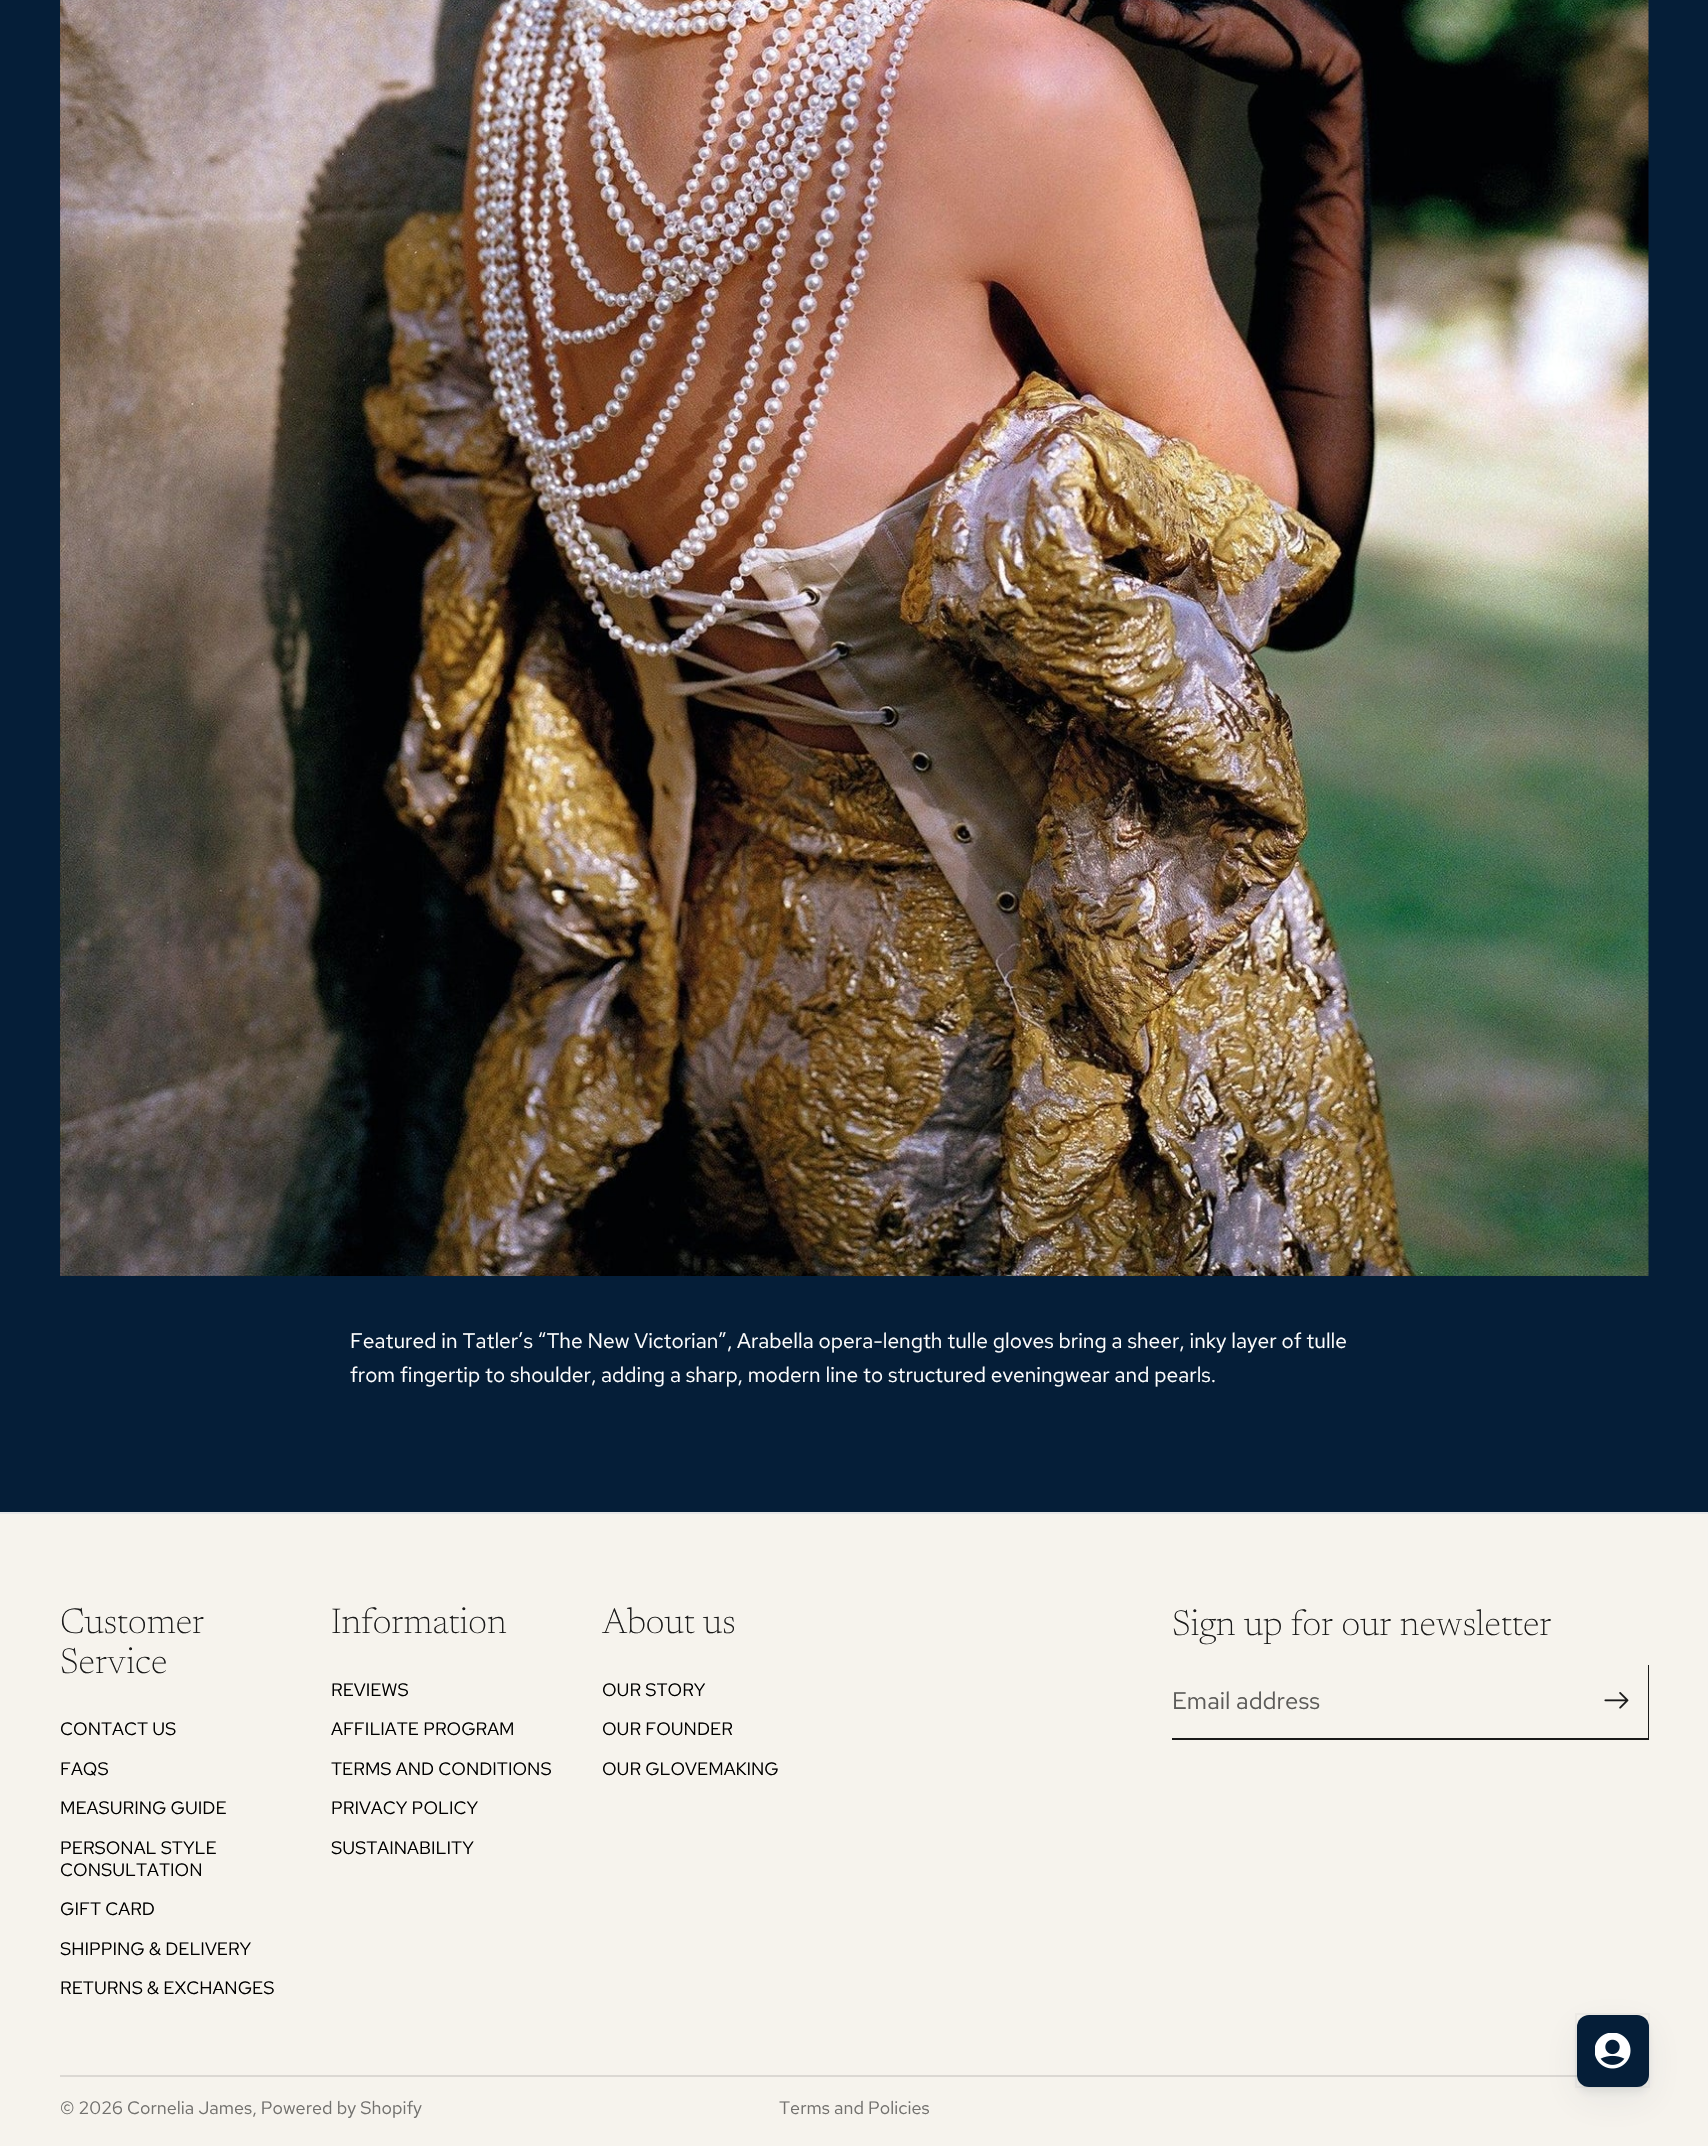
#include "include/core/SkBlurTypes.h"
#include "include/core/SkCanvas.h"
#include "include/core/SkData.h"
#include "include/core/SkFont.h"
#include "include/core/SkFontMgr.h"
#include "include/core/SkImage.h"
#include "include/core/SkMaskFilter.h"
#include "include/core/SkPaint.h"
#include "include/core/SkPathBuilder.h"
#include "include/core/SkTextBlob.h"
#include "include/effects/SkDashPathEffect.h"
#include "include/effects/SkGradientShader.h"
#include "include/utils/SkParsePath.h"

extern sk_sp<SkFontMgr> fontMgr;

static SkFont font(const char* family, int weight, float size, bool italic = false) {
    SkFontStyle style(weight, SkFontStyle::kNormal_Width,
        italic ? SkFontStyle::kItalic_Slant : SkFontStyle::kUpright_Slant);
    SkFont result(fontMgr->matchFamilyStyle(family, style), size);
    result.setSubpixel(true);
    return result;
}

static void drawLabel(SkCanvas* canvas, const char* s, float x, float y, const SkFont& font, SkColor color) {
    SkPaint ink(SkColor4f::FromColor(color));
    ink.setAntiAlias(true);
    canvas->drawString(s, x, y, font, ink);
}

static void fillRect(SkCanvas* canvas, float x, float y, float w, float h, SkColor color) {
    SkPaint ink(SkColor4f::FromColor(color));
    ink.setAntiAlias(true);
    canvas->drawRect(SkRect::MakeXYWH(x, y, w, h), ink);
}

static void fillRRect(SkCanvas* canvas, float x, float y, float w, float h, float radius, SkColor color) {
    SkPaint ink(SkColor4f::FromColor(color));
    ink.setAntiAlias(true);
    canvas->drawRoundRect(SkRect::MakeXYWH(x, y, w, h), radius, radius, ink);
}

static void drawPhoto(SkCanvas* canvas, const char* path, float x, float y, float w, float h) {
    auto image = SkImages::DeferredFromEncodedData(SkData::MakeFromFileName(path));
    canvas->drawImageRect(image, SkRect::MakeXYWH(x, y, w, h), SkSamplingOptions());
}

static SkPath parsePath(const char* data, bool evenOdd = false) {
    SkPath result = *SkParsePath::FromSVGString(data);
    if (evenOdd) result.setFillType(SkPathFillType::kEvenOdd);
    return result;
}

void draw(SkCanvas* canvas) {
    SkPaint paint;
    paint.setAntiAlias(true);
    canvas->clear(0xFF051E38);
    drawPhoto(canvas, "assets/img1.png", 60, 0, 1589, 1276);
    SkFont font1 = font("Red Hat Text", 400, 21);
    drawLabel(canvas, "Featured in Tatler’s “The New Victorian”, Arabella opera-length tulle gloves bring a sheer, inky layer of tulle", 350, 1348, font1, 0xFFFFFFFF);
    drawLabel(canvas, "from fingertip to shoulder, adding a sharp, modern line to structured eveningwear and pearls.", 350, 1382, font1, 0xFFFFFFFF);
    fillRect(canvas, 0, 1512, 1708, 2, 0xFFE6E6E6);
    fillRect(canvas, 0, 1514, 1708, 632, 0xFFF6F3ED);
    SkFont font2 = font("Newsreader", 200, 36);
    drawLabel(canvas, "Customer", 60, 1633, font2, 0xFF1A1A1A);
    drawLabel(canvas, "Service", 60, 1673, font2, 0xFF1A1A1A);
    SkFont font3 = font("Red Hat Text", 400, 18);
    drawLabel(canvas, "CONTACT US", 60, 1735, font3, 0xFF000000);
    drawLabel(canvas, "FAQS", 60, 1775, font3, 0xFF000000);
    drawLabel(canvas, "MEASURING GUIDE", 60, 1814, font3, 0xFF000000);
    drawLabel(canvas, "PERSONAL STYLE", 60, 1854, font3, 0xFF000000);
    drawLabel(canvas, "CONSULTATION", 60, 1876, font3, 0xFF000000);
    drawLabel(canvas, "GIFT CARD", 60, 1915, font3, 0xFF000000);
    drawLabel(canvas, "SHIPPING & DELIVERY", 60, 1955, font3, 0xFF000000);
    drawLabel(canvas, "RETURNS & EXCHANGES", 60, 1994, font3, 0xFF000000);
    drawLabel(canvas, "Information", 331, 1633, font2, 0xFF1A1A1A);
    drawLabel(canvas, "REVIEWS", 331, 1696, font3, 0xFF000000);
    drawLabel(canvas, "AFFILIATE PROGRAM", 331, 1735, font3, 0xFF000000);
    drawLabel(canvas, "TERMS AND CONDITIONS", 331, 1775, font3, 0xFF000000);
    drawLabel(canvas, "PRIVACY POLICY", 331, 1814, font3, 0xFF000000);
    drawLabel(canvas, "SUSTAINABILITY", 331, 1854, font3, 0xFF000000);
    drawLabel(canvas, "About us", 602, 1633, font2, 0xFF1A1A1A);
    drawLabel(canvas, "OUR STORY", 602, 1696, font3, 0xFF000000);
    drawLabel(canvas, "OUR FOUNDER", 602, 1735, font3, 0xFF000000);
    drawLabel(canvas, "OUR GLOVEMAKING", 602, 1775, font3, 0xFF000000);
    drawLabel(canvas, "Sign up for our newsletter", 1172, 1635, font2, 0xFF1A1A1A);
    paint.setColor(0xFF1A1A1A);
    canvas->drawPath(parsePath("M1172 1738V1740H1649V1665H1648V1738Z"), paint);
    SkFont font4 = font("Red Hat Text", 400, 24);
    drawLabel(canvas, "Email address", 1172, 1709, font4, 0xFF5C5B59);
    drawPhoto(canvas, "assets/img2.png", 1604, 1692, 25, 17);
    fillRect(canvas, 60, 2075, 1589, 2, 0xFFDBD8D3);
    drawLabel(canvas, "© 2026 Cornelia James, Powered by Shopify", 60, 2114, font3, 0xFF72716E);
    drawLabel(canvas, "Terms and Policies", 779, 2114, font3, 0xFF72716E);
    paint.setColor(0x14373F47);
    paint.setMaskFilter(SkMaskFilter::MakeBlur(kNormal_SkBlurStyle, 18));
    canvas->drawRoundRect(SkRect::MakeXYWH(1577, 2027, 72, 72), 12, 12, paint);
    paint.setMaskFilter(nullptr);
    paint.setMaskFilter(SkMaskFilter::MakeBlur(kNormal_SkBlurStyle, 3));
    canvas->drawRoundRect(SkRect::MakeXYWH(1577, 2021, 72, 72), 12, 12, paint);
    paint.setMaskFilter(nullptr);
    paint.setStroke(true);
    paint.setStrokeWidth(2);
    paint.setColor(0x0A373F47);
    canvas->drawRect(SkRect::MakeXYWH(1576, 2014, 73, 73), paint);
    fillRRect(canvas, 1577, 2015, 72, 72, 12, 0xFF051E38);
    drawPhoto(canvas, "assets/img3.png", 1595, 2033, 36, 36);
}
